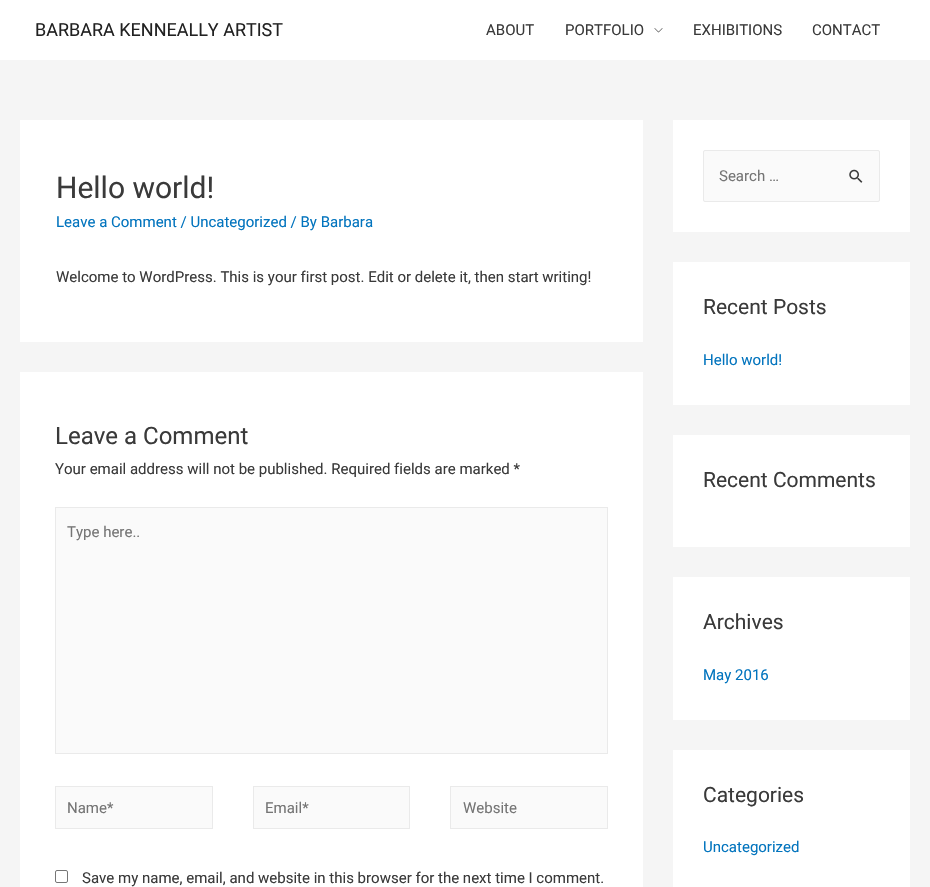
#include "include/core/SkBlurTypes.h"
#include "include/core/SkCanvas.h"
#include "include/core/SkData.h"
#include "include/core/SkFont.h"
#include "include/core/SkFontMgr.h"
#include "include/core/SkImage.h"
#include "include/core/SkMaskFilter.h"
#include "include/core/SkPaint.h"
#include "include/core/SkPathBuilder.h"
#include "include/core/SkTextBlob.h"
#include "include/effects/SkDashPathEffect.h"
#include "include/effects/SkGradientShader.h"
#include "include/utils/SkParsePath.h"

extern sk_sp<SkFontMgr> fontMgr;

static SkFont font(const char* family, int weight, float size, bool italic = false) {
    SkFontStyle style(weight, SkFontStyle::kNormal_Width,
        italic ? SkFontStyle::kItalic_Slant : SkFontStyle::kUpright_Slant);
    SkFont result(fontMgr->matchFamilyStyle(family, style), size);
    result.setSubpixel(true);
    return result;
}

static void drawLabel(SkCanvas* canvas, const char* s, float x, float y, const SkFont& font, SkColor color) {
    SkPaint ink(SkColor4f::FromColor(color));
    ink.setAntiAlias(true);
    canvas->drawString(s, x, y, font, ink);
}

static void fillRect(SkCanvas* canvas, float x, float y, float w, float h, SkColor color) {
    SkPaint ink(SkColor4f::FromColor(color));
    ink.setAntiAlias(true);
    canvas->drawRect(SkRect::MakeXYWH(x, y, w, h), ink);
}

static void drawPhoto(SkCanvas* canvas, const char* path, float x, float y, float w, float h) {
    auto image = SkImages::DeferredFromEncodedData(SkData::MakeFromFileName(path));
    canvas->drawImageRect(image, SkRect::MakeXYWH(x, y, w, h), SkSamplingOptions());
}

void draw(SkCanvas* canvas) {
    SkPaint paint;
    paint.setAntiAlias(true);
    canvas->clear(0xFFF5F5F5);
    fillRect(canvas, 0, 0, 930, 60, 0xFFFFFFFF);
    SkFont font1 = font("Roboto", 400, 18);
    drawLabel(canvas, "BARBARA KENNEALLY ARTIST", 35, 36, font1, 0xFF222222);
    SkFont font2 = font("Roboto", 400, 15);
    drawLabel(canvas, "ABOUT", 486, 35, font2, 0xFF3A3A3A);
    drawLabel(canvas, "PORTFOLIO", 565, 35, font2, 0xFF3A3A3A);
    drawPhoto(canvas, "assets/img1.png", 654, 28, 9, 5);
    drawLabel(canvas, "EXHIBITIONS", 693, 35, font2, 0xFF3A3A3A);
    drawLabel(canvas, "CONTACT", 812, 35, font2, 0xFF3A3A3A);
    fillRect(canvas, 20, 120, 623, 222, 0xFFFFFFFF);
    SkFont font3 = font("Roboto", 400, 30);
    drawLabel(canvas, "Hello world!", 56, 198, font3, 0xFF3A3A3A);
    drawLabel(canvas, "Leave a Comment / Uncategorized / By Barbara", 56, 227, font2, 0xFF0274BE);
    drawLabel(canvas, "Welcome to WordPress. This is your first post. Edit or delete it, then start writing!", 56, 282, font2, 0xFF3A3A3A);
    fillRect(canvas, 20, 372, 623, 515, 0xFFFFFFFF);
    SkFont font4 = font("Roboto", 400, 24);
    drawLabel(canvas, "Leave a Comment", 55, 444, font4, 0xFF3A3A3A);
    drawLabel(canvas, "Your email address will not be published. Required fields are marked *", 55, 474, font2, 0xFF3A3A3A);
    paint.setColor(0xFFFAFAFA);
    canvas->drawRect(SkRect::MakeXYWH(55.5f, 507.5f, 552, 246), paint);
    paint.setStroke(true);
    paint.setStrokeWidth(1);
    paint.setColor(0xFFEAEAEA);
    canvas->drawRect(SkRect::MakeXYWH(55.5f, 507.5f, 552, 246), paint);
    drawLabel(canvas, "Type here..", 67, 537, font2, 0xFF757575);
    paint.setStroke(false);
    paint.setColor(0xFFFAFAFA);
    canvas->drawRect(SkRect::MakeXYWH(55.5f, 786.5f, 157, 42), paint);
    paint.setStroke(true);
    paint.setColor(0xFFEAEAEA);
    canvas->drawRect(SkRect::MakeXYWH(55.5f, 786.5f, 157, 42), paint);
    drawLabel(canvas, "Name*", 67, 813, font2, 0xFF757575);
    paint.setStroke(false);
    paint.setColor(0xFFFAFAFA);
    canvas->drawRect(SkRect::MakeXYWH(253.5f, 786.5f, 156, 42), paint);
    paint.setStroke(true);
    paint.setColor(0xFFEAEAEA);
    canvas->drawRect(SkRect::MakeXYWH(253.5f, 786.5f, 156, 42), paint);
    drawLabel(canvas, "Email*", 265, 813, font2, 0xFF757575);
    paint.setStroke(false);
    paint.setColor(0xFFFAFAFA);
    canvas->drawRect(SkRect::MakeXYWH(450.5f, 786.5f, 157, 42), paint);
    paint.setStroke(true);
    paint.setColor(0xFFEAEAEA);
    canvas->drawRect(SkRect::MakeXYWH(450.5f, 786.5f, 157, 42), paint);
    drawLabel(canvas, "Website", 463, 813, font2, 0xFF757575);
    paint.setColor(0xFF767676);
    canvas->drawRoundRect(SkRect::MakeXYWH(55.5f, 870.5f, 12, 12), 1.5f, 1.5f, paint);
    drawLabel(canvas, "Save my name, email, and website in this browser for the next time I comment.", 82, 883, font2, 0xFF3A3A3A);
    fillRect(canvas, 673, 120, 237, 112, 0xFFFFFFFF);
    paint.setStroke(false);
    paint.setColor(0xFFFAFAFA);
    canvas->drawRoundRect(SkRect::MakeXYWH(703.5f, 150.5f, 176, 51), 1.5f, 1.5f, paint);
    paint.setStroke(true);
    paint.setColor(0xFFEAEAEA);
    canvas->drawRoundRect(SkRect::MakeXYWH(703.5f, 150.5f, 176, 51), 1.5f, 1.5f, paint);
    drawLabel(canvas, "Search …", 719, 181, font2, 0xFF757575);
    drawPhoto(canvas, "assets/img2.png", 849, 169, 14, 14);
    fillRect(canvas, 673, 262, 237, 143, 0xFFFFFFFF);
    SkFont font5 = font("Roboto", 400, 21);
    drawLabel(canvas, "Recent Posts", 703, 314, font5, 0xFF3A3A3A);
    drawLabel(canvas, "Hello world!", 703, 365, font2, 0xFF0274BE);
    fillRect(canvas, 673, 435, 237, 112, 0xFFFFFFFF);
    drawLabel(canvas, "Recent Comments", 703, 487, font5, 0xFF3A3A3A);
    fillRect(canvas, 673, 577, 237, 143, 0xFFFFFFFF);
    drawLabel(canvas, "Archives", 703, 629, font5, 0xFF3A3A3A);
    drawLabel(canvas, "May 2016", 703, 680, font2, 0xFF0274BE);
    fillRect(canvas, 673, 750, 237, 137, 0xFFFFFFFF);
    drawLabel(canvas, "Categories", 703, 802, font5, 0xFF3A3A3A);
    drawLabel(canvas, "Uncategorized", 703, 852, font2, 0xFF0274BE);
}
